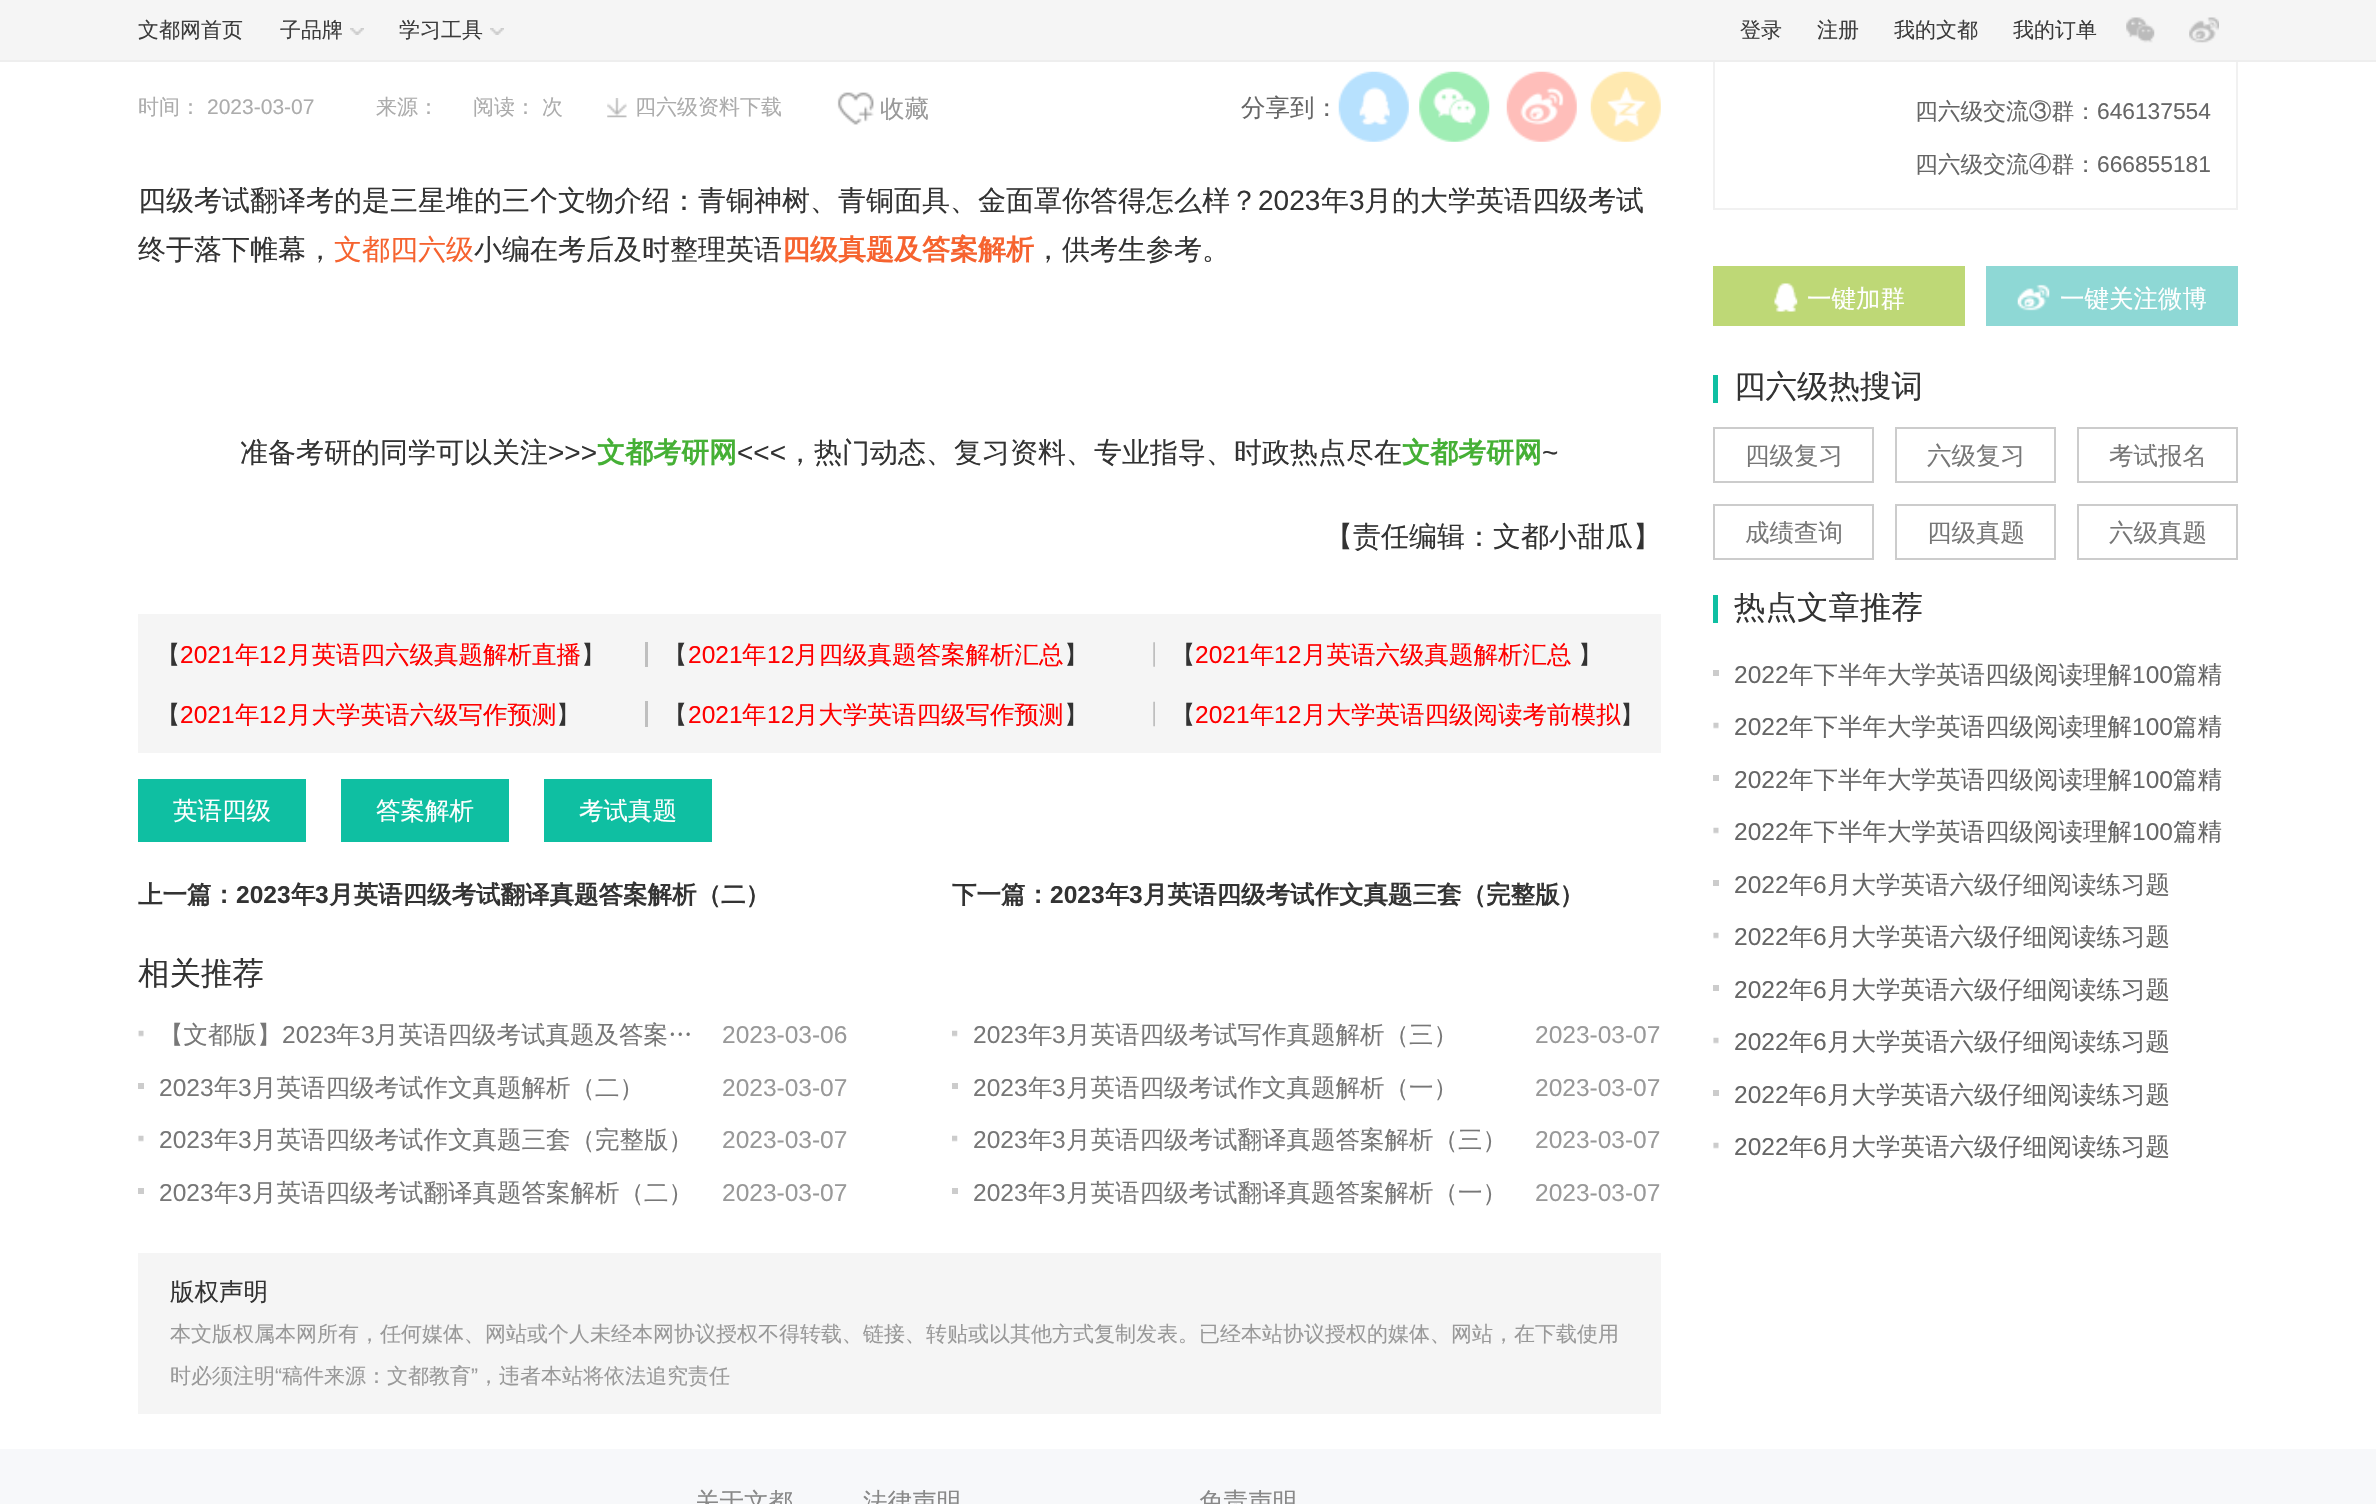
#include "include/core/SkBlurTypes.h"
#include "include/core/SkCanvas.h"
#include "include/core/SkData.h"
#include "include/core/SkFont.h"
#include "include/core/SkFontMgr.h"
#include "include/core/SkImage.h"
#include "include/core/SkMaskFilter.h"
#include "include/core/SkPaint.h"
#include "include/core/SkPathBuilder.h"
#include "include/core/SkTextBlob.h"
#include "include/effects/SkDashPathEffect.h"
#include "include/effects/SkGradientShader.h"
#include "include/utils/SkParsePath.h"

extern sk_sp<SkFontMgr> fontMgr;

static SkFont font(const char* family, int weight, float size, bool italic = false) {
    SkFontStyle style(weight, SkFontStyle::kNormal_Width,
        italic ? SkFontStyle::kItalic_Slant : SkFontStyle::kUpright_Slant);
    SkFont result(fontMgr->matchFamilyStyle(family, style), size);
    result.setSubpixel(true);
    return result;
}

static void drawLabel(SkCanvas* canvas, const char* s, float x, float y, const SkFont& font, SkColor color) {
    SkPaint ink(SkColor4f::FromColor(color));
    ink.setAntiAlias(true);
    canvas->drawString(s, x, y, font, ink);
}

static void fillRect(SkCanvas* canvas, float x, float y, float w, float h, SkColor color) {
    SkPaint ink(SkColor4f::FromColor(color));
    ink.setAntiAlias(true);
    canvas->drawRect(SkRect::MakeXYWH(x, y, w, h), ink);
}

static void drawPhoto(SkCanvas* canvas, const char* path, float x, float y, float w, float h) {
    auto image = SkImages::DeferredFromEncodedData(SkData::MakeFromFileName(path));
    canvas->drawImageRect(image, SkRect::MakeXYWH(x, y, w, h), SkSamplingOptions());
}

void draw(SkCanvas* canvas) {
    SkPaint paint;
    paint.setAntiAlias(true);
    canvas->clear(0xFFFFFFFF);
    paint.setStroke(true);
    paint.setStrokeWidth(2);
    paint.setColor(0xFFF1F1F1);
    canvas->drawRect(SkRect::MakeXYWH(1714, -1, 523, 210), paint);
    fillRect(canvas, 0, 0, 2376, 60, 0xFFF5F5F5);
    fillRect(canvas, 0, 60, 2376, 2, 0xFFEEEEEE);
    SkFont font1 = font("WenQuanYi Zen Hei", 500, 21);
    drawLabel(canvas, "文都网首页", 138, 37, font1, 0xFF3C3C3C);
    drawPhoto(canvas, "assets/img1.png", 350, 28, 14, 7);
    drawLabel(canvas, "子品牌", 280, 37, font1, 0xFF3C3C3C);
    drawPhoto(canvas, "assets/img1.png", 490, 28, 14, 7);
    drawLabel(canvas, "学习工具", 399, 37, font1, 0xFF3C3C3C);
    drawLabel(canvas, "登录", 1740, 37, font1, 0xFF3C3C3C);
    drawLabel(canvas, "注册", 1817, 37, font1, 0xFF3C3C3C);
    drawLabel(canvas, "我的文都", 1894, 37, font1, 0xFF3C3C3C);
    drawLabel(canvas, "我的订单", 2013, 37, font1, 0xFF3C3C3C);
    drawPhoto(canvas, "assets/img2.png", 2126, 17, 29, 26);
    drawPhoto(canvas, "assets/img3.png", 2189, 17, 30, 26);
    drawLabel(canvas, "时间：", 138, 114, font1, 0xFFACACAC);
    SkFont font2 = font("Liberation Sans", 400, 21);
    drawLabel(canvas, "2023-03-07", 207, 114, font2, 0xFFACACAC);
    drawLabel(canvas, "来源：", 376, 114, font1, 0xFFACACAC);
    drawLabel(canvas, "阅读：", 473, 114, font1, 0xFFACACAC);
    drawLabel(canvas, "次", 542, 114, font1, 0xFFACACAC);
    drawPhoto(canvas, "assets/img4.png", 607, 98, 20, 20);
    drawLabel(canvas, "四六级资料下载", 635, 114, font1, 0xFFACACAC);
    drawPhoto(canvas, "assets/img5.png", 837, 92, 37, 33);
    SkFont font3 = font("WenQuanYi Zen Hei", 500, 24.5f);
    drawLabel(canvas, "收藏", 880, 117, font3, 0xFF999999);
    drawLabel(canvas, "分享到：", 1241, 116, font3, 0xFF666666);
    drawPhoto(canvas, "assets/img6.png", 1338, 71, 71, 71);
    drawPhoto(canvas, "assets/img7.png", 1419, 71, 71, 71);
    drawPhoto(canvas, "assets/img8.png", 1506, 71, 71, 71);
    drawPhoto(canvas, "assets/img9.png", 1590, 71, 71, 71);
    SkFont font4 = font("WenQuanYi Zen Hei", 500, 28);
    drawLabel(canvas, "四级考试翻译考的是三星堆的三个文物介绍：青铜神树、青铜面具、金面罩你答得怎么样？", 138, 210, font4, 0xFF333333);
    SkFont font5 = font("Liberation Sans", 400, 28);
    drawLabel(canvas, "2023", 1258, 210, font5, 0xFF333333);
    drawLabel(canvas, "年", 1321, 210, font4, 0xFF333333);
    drawLabel(canvas, "3", 1349, 210, font5, 0xFF333333);
    drawLabel(canvas, "月的大学英语四级考试", 1364, 210, font4, 0xFF333333);
    drawLabel(canvas, "终于落下帷幕，", 138, 259, font4, 0xFF333333);
    drawLabel(canvas, "文都四六级", 334, 259, font4, 0xFFF6632F);
    drawLabel(canvas, "小编在考后及时整理英语", 474, 259, font4, 0xFF333333);
    SkFont font6 = font("WenQuanYi Zen Hei", 700, 28);
    drawLabel(canvas, "四级真题及答案解析", 782, 259, font6, 0xFFF6632F);
    drawLabel(canvas, "，供考生参考。", 1034, 259, font4, 0xFF333333);
    drawLabel(canvas, "准备考研的同学可以关注", 240, 462, font4, 0xFF333333);
    drawLabel(canvas, ">>>", 548, 462, font5, 0xFF333333);
    drawLabel(canvas, "文都考研网", 597, 462, font6, 0xFF45B035);
    drawLabel(canvas, "<<<", 737, 462, font5, 0xFF333333);
    drawLabel(canvas, "，热门动态、复习资料、专业指导、时政热点尽在", 786, 462, font4, 0xFF333333);
    drawLabel(canvas, "文都考研网", 1402, 462, font6, 0xFF45B035);
    drawLabel(canvas, "~", 1542, 462, font5, 0xFF333333);
    drawLabel(canvas, "【责任编辑：文都小甜瓜】", 1325, 546, font4, 0xFF333333);
    fillRect(canvas, 138, 614, 1523, 139, 0xFFF5F5F5);
    drawLabel(canvas, "【", 156, 663, font3, 0xFF333333);
    SkFont font7 = font("Liberation Sans", 400, 24.5f);
    drawLabel(canvas, "2021", 180, 663, font7, 0xFFFF0000);
    drawLabel(canvas, "年", 235, 663, font3, 0xFFFF0000);
    drawLabel(canvas, "12", 259, 663, font7, 0xFFFF0000);
    drawLabel(canvas, "月英语四六级真题解析直播", 287, 663, font3, 0xFFFF0000);
    drawLabel(canvas, "】", 581, 663, font3, 0xFF333333);
    fillRect(canvas, 645, 642, 3, 25, 0xFFBFBFBF);
    drawLabel(canvas, "【", 663, 663, font3, 0xFF333333);
    drawLabel(canvas, "2021", 688, 663, font7, 0xFFFF0000);
    drawLabel(canvas, "年", 742, 663, font3, 0xFFFF0000);
    drawLabel(canvas, "12", 767, 663, font7, 0xFFFF0000);
    drawLabel(canvas, "月四级真题答案解析汇总", 794, 663, font3, 0xFFFF0000);
    drawLabel(canvas, "】", 1064, 663, font3, 0xFF333333);
    drawPhoto(canvas, "assets/img10.png", 1153, 642, 2, 25);
    drawLabel(canvas, "【", 1171, 663, font3, 0xFF333333);
    drawLabel(canvas, "2021", 1195, 663, font7, 0xFFFF0000);
    drawLabel(canvas, "年", 1250, 663, font3, 0xFFFF0000);
    drawLabel(canvas, "12", 1274, 663, font7, 0xFFFF0000);
    drawLabel(canvas, "月英语六级真题解析汇总", 1302, 663, font3, 0xFFFF0000);
    drawLabel(canvas, "】", 1578, 663, font3, 0xFF333333);
    drawLabel(canvas, "【", 156, 723, font3, 0xFF333333);
    drawLabel(canvas, "2021", 180, 723, font7, 0xFFFF0000);
    drawLabel(canvas, "年", 235, 723, font3, 0xFFFF0000);
    drawLabel(canvas, "12", 259, 723, font7, 0xFFFF0000);
    drawLabel(canvas, "月大学英语六级写作预测", 287, 723, font3, 0xFFFF0000);
    drawLabel(canvas, "】", 556, 723, font3, 0xFF333333);
    fillRect(canvas, 645, 701, 3, 26, 0xFFBFBFBF);
    drawLabel(canvas, "【", 663, 723, font3, 0xFF333333);
    drawLabel(canvas, "2021", 688, 723, font7, 0xFFFF0000);
    drawLabel(canvas, "年", 742, 723, font3, 0xFFFF0000);
    drawLabel(canvas, "12", 767, 723, font7, 0xFFFF0000);
    drawLabel(canvas, "月大学英语四级写作预测", 794, 723, font3, 0xFFFF0000);
    drawLabel(canvas, "】", 1064, 723, font3, 0xFF333333);
    drawPhoto(canvas, "assets/img11.png", 1153, 701, 2, 26);
    drawLabel(canvas, "【", 1171, 723, font3, 0xFF333333);
    drawLabel(canvas, "2021", 1195, 723, font7, 0xFFFF0000);
    drawLabel(canvas, "年", 1250, 723, font3, 0xFFFF0000);
    drawLabel(canvas, "12", 1274, 723, font7, 0xFFFF0000);
    drawLabel(canvas, "月大学英语四级阅读考前模拟", 1302, 723, font3, 0xFFFF0000);
    drawLabel(canvas, "】", 1620, 723, font3, 0xFF333333);
    fillRect(canvas, 138, 779, 168, 63, 0xFF0FBFA2);
    drawLabel(canvas, "英语四级", 173, 819, font3, 0xFFFFFFFF);
    fillRect(canvas, 341, 779, 168, 63, 0xFF0FBFA2);
    drawLabel(canvas, "答案解析", 376, 819, font3, 0xFFFFFFFF);
    fillRect(canvas, 544, 779, 168, 63, 0xFF0FBFA2);
    drawLabel(canvas, "考试真题", 579, 819, font3, 0xFFFFFFFF);
    SkFont font8 = font("WenQuanYi Zen Hei", 700, 24.5f);
    drawLabel(canvas, "上一篇：", 138, 903, font8, 0xFF333333);
    SkFont font9 = font("Liberation Sans", 700, 24.5f);
    drawLabel(canvas, "2023", 236, 903, font9, 0xFF333333);
    drawLabel(canvas, "年", 291, 903, font8, 0xFF333333);
    drawLabel(canvas, "3", 315, 903, font9, 0xFF333333);
    drawLabel(canvas, "月英语四级考试翻译真题答案解析（二）", 329, 903, font8, 0xFF333333);
    drawLabel(canvas, "下一篇：", 952, 903, font8, 0xFF333333);
    drawLabel(canvas, "2023", 1050, 903, font9, 0xFF333333);
    drawLabel(canvas, "年", 1105, 903, font8, 0xFF333333);
    drawLabel(canvas, "3", 1129, 903, font9, 0xFF333333);
    drawLabel(canvas, "月英语四级考试作文真题三套（完整版）", 1143, 903, font8, 0xFF333333);
    SkFont font10 = font("WenQuanYi Zen Hei", 500, 31.5f);
    drawLabel(canvas, "相关推荐", 138, 984, font10, 0xFF333333);
    drawPhoto(canvas, "assets/img12.png", 138, 1030, 6, 7);
    drawLabel(canvas, "【文都版】", 159, 1043, font3, 0xFF777777);
    drawLabel(canvas, "2023", 282, 1043, font7, 0xFF777777);
    drawLabel(canvas, "年", 336, 1043, font3, 0xFF777777);
    drawLabel(canvas, "3", 361, 1043, font7, 0xFF777777);
    drawLabel(canvas, "月英语四级考试真题及答案…", 374, 1043, font3, 0xFF777777);
    drawLabel(canvas, "2023-03-06", 722, 1043, font7, 0xFF999999);
    drawPhoto(canvas, "assets/img13.png", 952, 1030, 6, 7);
    drawLabel(canvas, "2023", 973, 1043, font7, 0xFF777777);
    drawLabel(canvas, "年", 1028, 1043, font3, 0xFF777777);
    drawLabel(canvas, "3", 1052, 1043, font7, 0xFF777777);
    drawLabel(canvas, "月英语四级考试写作真题解析（三）", 1066, 1043, font3, 0xFF777777);
    drawLabel(canvas, "2023-03-07", 1535, 1043, font7, 0xFF999999);
    fillRect(canvas, 138, 1083, 6, 6, 0xFFCCCCCC);
    drawLabel(canvas, "2023", 159, 1096, font7, 0xFF777777);
    drawLabel(canvas, "年", 214, 1096, font3, 0xFF777777);
    drawLabel(canvas, "3", 238, 1096, font7, 0xFF777777);
    drawLabel(canvas, "月英语四级考试作文真题解析（二）", 252, 1096, font3, 0xFF777777);
    drawLabel(canvas, "2023-03-07", 722, 1096, font7, 0xFF999999);
    fillRect(canvas, 952, 1083, 6, 6, 0xFFCCCCCC);
    drawLabel(canvas, "2023", 973, 1096, font7, 0xFF777777);
    drawLabel(canvas, "年", 1028, 1096, font3, 0xFF777777);
    drawLabel(canvas, "3", 1052, 1096, font7, 0xFF777777);
    drawLabel(canvas, "月英语四级考试作文真题解析（一）", 1066, 1096, font3, 0xFF777777);
    drawLabel(canvas, "2023-03-07", 1535, 1096, font7, 0xFF999999);
    drawPhoto(canvas, "assets/img14.png", 138, 1135, 6, 7);
    drawLabel(canvas, "2023", 159, 1148, font7, 0xFF777777);
    drawLabel(canvas, "年", 214, 1148, font3, 0xFF777777);
    drawLabel(canvas, "3", 238, 1148, font7, 0xFF777777);
    drawLabel(canvas, "月英语四级考试作文真题三套（完整版）", 252, 1148, font3, 0xFF777777);
    drawLabel(canvas, "2023-03-07", 722, 1148, font7, 0xFF999999);
    drawPhoto(canvas, "assets/img13.png", 952, 1135, 6, 7);
    drawLabel(canvas, "2023", 973, 1148, font7, 0xFF777777);
    drawLabel(canvas, "年", 1028, 1148, font3, 0xFF777777);
    drawLabel(canvas, "3", 1052, 1148, font7, 0xFF777777);
    drawLabel(canvas, "月英语四级考试翻译真题答案解析（三）", 1066, 1148, font3, 0xFF777777);
    drawLabel(canvas, "2023-03-07", 1535, 1148, font7, 0xFF999999);
    fillRect(canvas, 138, 1188, 6, 6, 0xFFCCCCCC);
    drawLabel(canvas, "2023", 159, 1201, font7, 0xFF777777);
    drawLabel(canvas, "年", 214, 1201, font3, 0xFF777777);
    drawLabel(canvas, "3", 238, 1201, font7, 0xFF777777);
    drawLabel(canvas, "月英语四级考试翻译真题答案解析（二）", 252, 1201, font3, 0xFF777777);
    drawLabel(canvas, "2023-03-07", 722, 1201, font7, 0xFF999999);
    fillRect(canvas, 952, 1188, 6, 6, 0xFFCCCCCC);
    drawLabel(canvas, "2023", 973, 1201, font7, 0xFF777777);
    drawLabel(canvas, "年", 1028, 1201, font3, 0xFF777777);
    drawLabel(canvas, "3", 1052, 1201, font7, 0xFF777777);
    drawLabel(canvas, "月英语四级考试翻译真题答案解析（一）", 1066, 1201, font3, 0xFF777777);
    drawLabel(canvas, "2023-03-07", 1535, 1201, font7, 0xFF999999);
    fillRect(canvas, 138, 1253, 1523, 161, 0xFFF5F5F5);
    drawLabel(canvas, "版权声明", 170, 1300, font3, 0xFF333333);
    drawLabel(canvas, "本文版权属本网所有，任何媒体、网站或个人未经本网协议授权不得转载、链接、转贴或以其他方式复制发表。已经本站协议授权的媒体、网站，在下载使用", 170, 1341, font1, 0xFF999999);
    drawLabel(canvas, "时必须注明", 170, 1383, font1, 0xFF999999);
    drawLabel(canvas, "“", 275, 1383, font2, 0xFF999999);
    drawLabel(canvas, "稿件来源：文都教育", 282, 1383, font1, 0xFF999999);
    drawLabel(canvas, "”", 471, 1383, font2, 0xFF999999);
    drawLabel(canvas, "，违者本站将依法追究责任", 478, 1383, font1, 0xFF999999);
    SkFont font11 = font("WenQuanYi Zen Hei", 500, 22.75f);
    drawLabel(canvas, "四六级交流③群：", 1915, 119, font11, 0xFF666666);
    SkFont font12 = font("Liberation Sans", 400, 22.75f);
    drawLabel(canvas, "646137554", 2097, 119, font12, 0xFF666666);
    drawLabel(canvas, "四六级交流④群：", 1915, 172, font11, 0xFF666666);
    drawLabel(canvas, "666855181", 2097, 172, font12, 0xFF666666);
    fillRect(canvas, 1713, 266, 252, 60, 0xFFBED876);
    drawPhoto(canvas, "assets/img15.png", 1774, 283, 24, 29);
    drawLabel(canvas, "一键加群", 1807, 307, font3, 0xFFFFFFFF);
    fillRect(canvas, 1986, 266, 252, 60, 0xFF8ED8D5);
    drawPhoto(canvas, "assets/img16.png", 2017, 284, 33, 27);
    drawLabel(canvas, "一键关注微博", 2060, 307, font3, 0xFFFFFFFF);
    fillRect(canvas, 1713, 375, 5, 28, 0xFF0FBFA2);
    drawLabel(canvas, "四六级热搜词", 1734, 397, font10, 0xFF333333);
    paint.setColor(0xFFCCCCCC);
    canvas->drawRect(SkRect::MakeXYWH(1714, 428, 159, 54), paint);
    drawLabel(canvas, "四级复习", 1745, 464, font3, 0xFF777777);
    canvas->drawRect(SkRect::MakeXYWH(1896, 428, 159, 54), paint);
    drawLabel(canvas, "六级复习", 1927, 464, font3, 0xFF777777);
    canvas->drawRect(SkRect::MakeXYWH(2078, 428, 159, 54), paint);
    drawLabel(canvas, "考试报名", 2109, 464, font3, 0xFF777777);
    canvas->drawRect(SkRect::MakeXYWH(1714, 505, 159, 54), paint);
    drawLabel(canvas, "成绩查询", 1745, 541, font3, 0xFF777777);
    canvas->drawRect(SkRect::MakeXYWH(1896, 505, 159, 54), paint);
    drawLabel(canvas, "四级真题", 1927, 541, font3, 0xFF777777);
    canvas->drawRect(SkRect::MakeXYWH(2078, 505, 159, 54), paint);
    drawLabel(canvas, "六级真题", 2109, 541, font3, 0xFF777777);
    fillRect(canvas, 1713, 595, 5, 28, 0xFF0FBFA2);
    drawLabel(canvas, "热点文章推荐", 1734, 618, font10, 0xFF333333);
    fillRect(canvas, 1713, 670, 6, 6, 0xFFCCCCCC);
    drawLabel(canvas, "2022", 1734, 683, font7, 0xFF666666);
    drawLabel(canvas, "年下半年大学英语四级阅读理解", 1789, 683, font3, 0xFF666666);
    drawLabel(canvas, "100", 2132, 683, font7, 0xFF666666);
    drawLabel(canvas, "篇精", 2173, 683, font3, 0xFF666666);
    drawPhoto(canvas, "assets/img14.png", 1713, 722, 6, 7);
    drawLabel(canvas, "2022", 1734, 735, font7, 0xFF666666);
    drawLabel(canvas, "年下半年大学英语四级阅读理解", 1789, 735, font3, 0xFF666666);
    drawLabel(canvas, "100", 2132, 735, font7, 0xFF666666);
    drawLabel(canvas, "篇精", 2173, 735, font3, 0xFF666666);
    fillRect(canvas, 1713, 775, 6, 6, 0xFFCCCCCC);
    drawLabel(canvas, "2022", 1734, 788, font7, 0xFF666666);
    drawLabel(canvas, "年下半年大学英语四级阅读理解", 1789, 788, font3, 0xFF666666);
    drawLabel(canvas, "100", 2132, 788, font7, 0xFF666666);
    drawLabel(canvas, "篇精", 2173, 788, font3, 0xFF666666);
    drawPhoto(canvas, "assets/img14.png", 1713, 827, 6, 7);
    drawLabel(canvas, "2022", 1734, 840, font7, 0xFF666666);
    drawLabel(canvas, "年下半年大学英语四级阅读理解", 1789, 840, font3, 0xFF666666);
    drawLabel(canvas, "100", 2132, 840, font7, 0xFF666666);
    drawLabel(canvas, "篇精", 2173, 840, font3, 0xFF666666);
    fillRect(canvas, 1713, 880, 6, 6, 0xFFCCCCCC);
    drawLabel(canvas, "2022", 1734, 893, font7, 0xFF666666);
    drawLabel(canvas, "年", 1789, 893, font3, 0xFF666666);
    drawLabel(canvas, "6", 1813, 893, font7, 0xFF666666);
    drawLabel(canvas, "月大学英语六级仔细阅读练习题", 1827, 893, font3, 0xFF666666);
    drawPhoto(canvas, "assets/img14.png", 1713, 932, 6, 7);
    drawLabel(canvas, "2022", 1734, 945, font7, 0xFF666666);
    drawLabel(canvas, "年", 1789, 945, font3, 0xFF666666);
    drawLabel(canvas, "6", 1813, 945, font7, 0xFF666666);
    drawLabel(canvas, "月大学英语六级仔细阅读练习题", 1827, 945, font3, 0xFF666666);
    fillRect(canvas, 1713, 985, 6, 6, 0xFFCCCCCC);
    drawLabel(canvas, "2022", 1734, 998, font7, 0xFF666666);
    drawLabel(canvas, "年", 1789, 998, font3, 0xFF666666);
    drawLabel(canvas, "6", 1813, 998, font7, 0xFF666666);
    drawLabel(canvas, "月大学英语六级仔细阅读练习题", 1827, 998, font3, 0xFF666666);
    drawPhoto(canvas, "assets/img14.png", 1713, 1037, 6, 7);
    drawLabel(canvas, "2022", 1734, 1050, font7, 0xFF666666);
    drawLabel(canvas, "年", 1789, 1050, font3, 0xFF666666);
    drawLabel(canvas, "6", 1813, 1050, font7, 0xFF666666);
    drawLabel(canvas, "月大学英语六级仔细阅读练习题", 1827, 1050, font3, 0xFF666666);
    fillRect(canvas, 1713, 1090, 6, 6, 0xFFCCCCCC);
    drawLabel(canvas, "2022", 1734, 1103, font7, 0xFF666666);
    drawLabel(canvas, "年", 1789, 1103, font3, 0xFF666666);
    drawLabel(canvas, "6", 1813, 1103, font7, 0xFF666666);
    drawLabel(canvas, "月大学英语六级仔细阅读练习题", 1827, 1103, font3, 0xFF666666);
    drawPhoto(canvas, "assets/img14.png", 1713, 1142, 6, 7);
    drawLabel(canvas, "2022", 1734, 1155, font7, 0xFF666666);
    drawLabel(canvas, "年", 1789, 1155, font3, 0xFF666666);
    drawLabel(canvas, "6", 1813, 1155, font7, 0xFF666666);
    drawLabel(canvas, "月大学英语六级仔细阅读练习题", 1827, 1155, font3, 0xFF666666);
    fillRect(canvas, 0, 1449, 2376, 55, 0xFFF7F8FA);
    drawLabel(canvas, "关于文都", 695, 1510, font3, 0xFF888888);
    drawLabel(canvas, "法律声明", 863, 1510, font3, 0xFF888888);
    drawLabel(canvas, "免责声明", 1199, 1510, font3, 0xFF888888);
}
